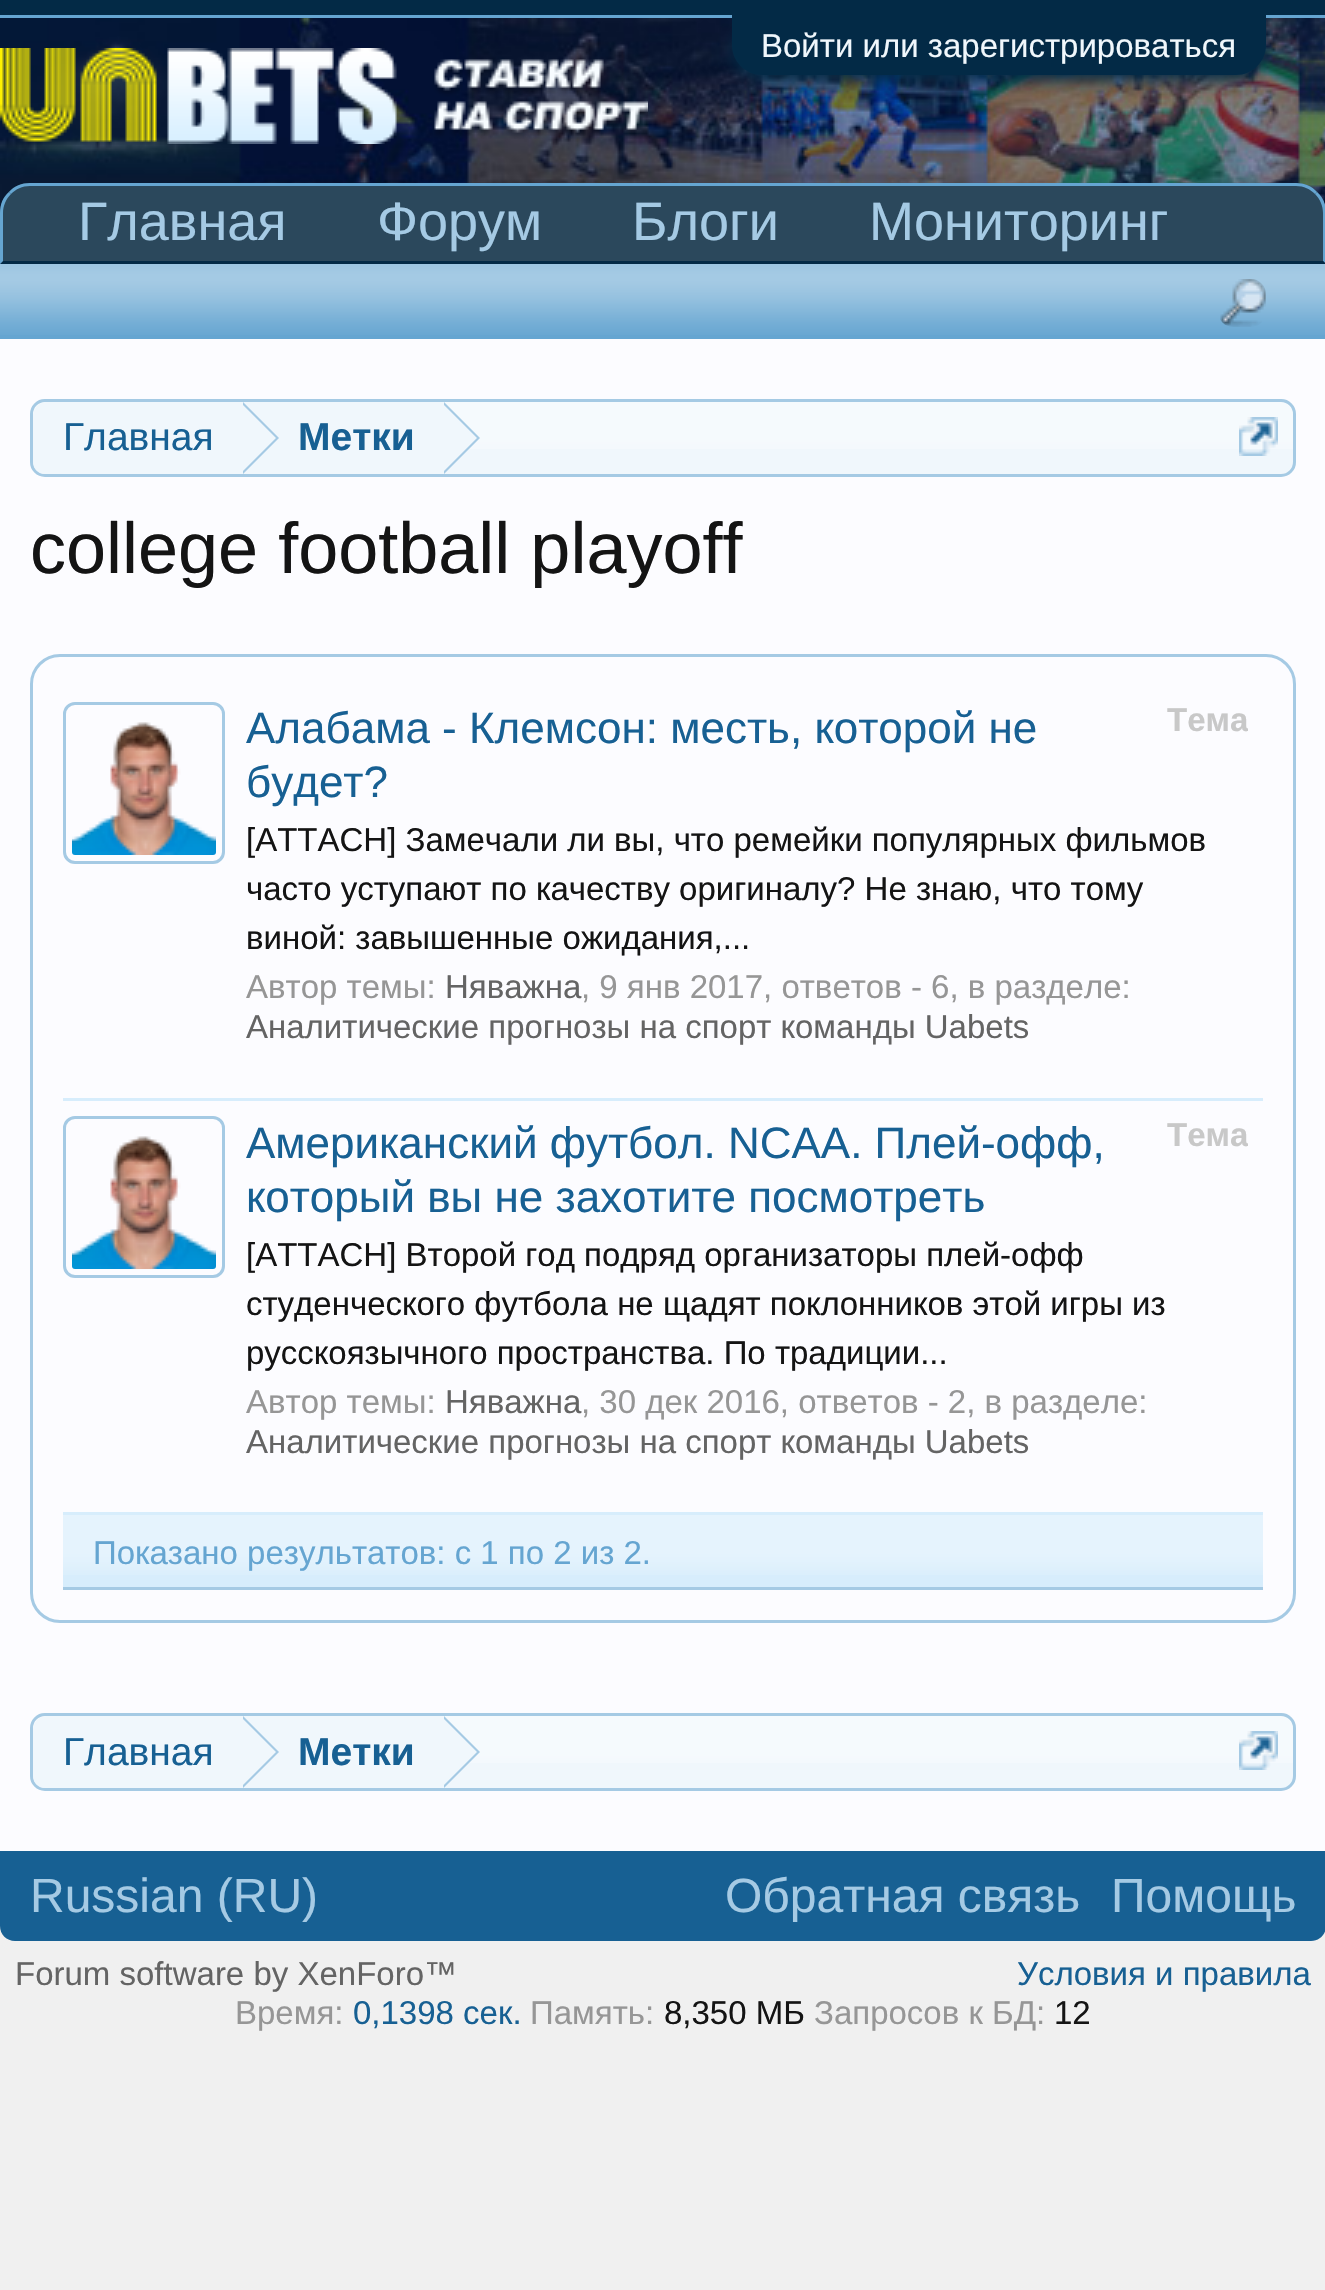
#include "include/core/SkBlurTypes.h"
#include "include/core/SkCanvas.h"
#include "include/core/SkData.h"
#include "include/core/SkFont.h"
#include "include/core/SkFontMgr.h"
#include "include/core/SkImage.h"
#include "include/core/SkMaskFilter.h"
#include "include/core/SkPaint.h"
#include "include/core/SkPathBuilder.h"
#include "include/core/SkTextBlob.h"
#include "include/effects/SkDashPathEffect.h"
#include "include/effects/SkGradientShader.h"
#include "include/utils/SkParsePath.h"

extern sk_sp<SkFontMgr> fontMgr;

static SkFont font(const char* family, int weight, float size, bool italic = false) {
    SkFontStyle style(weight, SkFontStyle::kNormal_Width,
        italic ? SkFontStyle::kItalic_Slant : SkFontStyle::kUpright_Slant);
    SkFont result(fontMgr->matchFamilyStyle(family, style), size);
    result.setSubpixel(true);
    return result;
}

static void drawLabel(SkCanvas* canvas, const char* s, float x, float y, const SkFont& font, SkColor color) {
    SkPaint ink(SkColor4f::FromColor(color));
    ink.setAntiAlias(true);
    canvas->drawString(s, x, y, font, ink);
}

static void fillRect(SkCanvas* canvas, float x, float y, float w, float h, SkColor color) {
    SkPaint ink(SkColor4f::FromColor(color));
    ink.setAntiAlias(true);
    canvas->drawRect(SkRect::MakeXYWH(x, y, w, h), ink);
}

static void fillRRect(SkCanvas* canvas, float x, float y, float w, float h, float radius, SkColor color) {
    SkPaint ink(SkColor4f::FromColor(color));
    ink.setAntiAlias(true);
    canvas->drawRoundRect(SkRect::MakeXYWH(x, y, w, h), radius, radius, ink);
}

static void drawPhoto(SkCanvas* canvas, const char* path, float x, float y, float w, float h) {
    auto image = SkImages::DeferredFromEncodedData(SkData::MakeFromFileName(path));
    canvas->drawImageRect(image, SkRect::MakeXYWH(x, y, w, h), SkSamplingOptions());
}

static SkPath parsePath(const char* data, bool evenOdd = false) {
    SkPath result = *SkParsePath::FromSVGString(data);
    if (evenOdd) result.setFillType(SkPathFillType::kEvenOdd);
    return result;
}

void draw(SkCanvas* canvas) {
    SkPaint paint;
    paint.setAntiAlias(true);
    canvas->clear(0xFFF0F0F0);
    fillRect(canvas, 0, 0, 1325, 15, 0xFF032A46);
    fillRect(canvas, 0, 15, 1325, 3, 0xFF65A5D1);
    drawPhoto(canvas, "assets/img1.png", 0, 18, 1325, 195);
    paint.setColor(0xFF032A46);
    paint.setMaskFilter(SkMaskFilter::MakeBlur(kNormal_SkBlurStyle, 7.5f));
    canvas->drawRoundRect(SkRect::MakeXYWH(732, 21, 534, 60), 30, 30, paint);
    paint.setMaskFilter(nullptr);
    canvas->drawPath(parsePath("M732 15H1266V45C1266 61.5 1252.5 75 1236 75H762C745.5 75 732 61.5 732 45Z"), paint);
    SkFont font1 = font("Liberation Sans", 400, 33);
    drawLabel(canvas, "Войти или зарегистрироваться", 761, 57, font1, 0xFFF0F7FC);
    drawPhoto(canvas, "assets/img2.png", 0, 48, 648, 96);
    paint.setColor(0xFF2B485C);
    canvas->drawPath(parsePath("M30 183H1296C1312.5 183 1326 196.5 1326 213V264H0V213C0 196.5 13.5 183 30 183Z"), paint);
    paint.setColor(0xFF65A5D1);
    canvas->drawPath(parsePath("M30 183C22 183 14 186 9 192L11 194C16 189 22 186 30 186H1296C1304 186 1310 189 1315 194L1317 192C1312 186 1304 183 1296 183Z"), paint);
    canvas->drawPath(parsePath("M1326 264V213C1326 204 1323 197 1317 192L1315 194C1320 199 1323 206 1323 213V261Z"), paint);
    paint.setColor(0xFF032A46);
    canvas->drawPath(parsePath("M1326 264L1323 261H3L0 264Z"), paint);
    paint.setColor(0xFF65A5D1);
    canvas->drawPath(parsePath("M0 264L3 261V213C3 206 6 199 11 194L9 192C3 197 0 204 0 213Z"), paint);
    SkFont font2 = font("Liberation Sans", 400, 54);
    drawLabel(canvas, "Главная", 78, 240, font2, 0xFFA5CAE4);
    drawLabel(canvas, "Форум", 377, 240, font2, 0xFFA5CAE4);
    drawLabel(canvas, "Блоги", 632, 240, font2, 0xFFA5CAE4);
    drawLabel(canvas, "Мониторинг", 869, 240, font2, 0xFFA5CAE4);
    fillRect(canvas, 0, 264, 1325, 75, 0xFF65A5D1);
    drawPhoto(canvas, "assets/img3.png", 0, 264, 1325, 71);
    drawPhoto(canvas, "assets/img4.png", 1220, 279, 46, 48);
    fillRect(canvas, 0, 339, 1325, 1512, 0xFFFCFCFF);
    fillRRect(canvas, 30, 399, 1266, 78, 15, 0xFFF0F7FC);
    drawPhoto(canvas, "assets/img5.png", 30, 402, 1266, 47);
    paint.setStroke(true);
    paint.setStrokeWidth(3);
    paint.setColor(0xFFA5CAE4);
    canvas->drawRoundRect(SkRect::MakeXYWH(31.5f, 400.5f, 1263, 75), 13.5f, 13.5f, paint);
    canvas->save();
    canvas->clipPath(parsePath("M45 402H1281C1287.5 402 1293 407.5 1293 414V462C1293 468.5 1287.5 474 1281 474H45C38.5 474 33 468.5 33 462V414C33 407.5 38.5 402 45 402Z"), true);
    paint.setStroke(false);
    paint.setColor(0xFFF0F7FC);
    canvas->drawPath(parsePath("M48 402H243V477H48C39.5 477 33 470.5 33 462V417C33 408.5 39.5 402 48 402Z"), paint);
    canvas->restore();
    SkFont font3 = font("Liberation Sans", 400, 39);
    drawLabel(canvas, "Главная", 63, 450, font3, 0xFF176093);
    fillRect(canvas, 243, 402, 201, 47, 0xFFF0F7FC);
    paint.setColor(0xFFA5CAE4);
    canvas->drawPath(parsePath("M243 474V402L279 438Z"), paint);
    paint.setColor(0xFFF0F7FC);
    canvas->drawPath(parsePath("M240 474V402L276 438Z"), paint);
    SkFont font4 = font("Liberation Sans", 700, 39);
    drawLabel(canvas, "Метки", 298, 450, font4, 0xFF176093);
    paint.setColor(0xFFA5CAE4);
    canvas->drawPath(parsePath("M444 474V402L480 438Z"), paint);
    paint.setColor(0xFFF0F7FC);
    canvas->drawPath(parsePath("M441 474V402L477 438Z"), paint);
    drawPhoto(canvas, "assets/img6.png", 1239, 417, 39, 39);
    SkFont font5 = font("Liberation Sans", 400, 72);
    drawLabel(canvas, "college football playoff", 30, 573, font5, 0xFF141414);
    paint.setStroke(true);
    paint.setColor(0xFFA5CAE4);
    canvas->drawRoundRect(SkRect::MakeXYWH(31.5f, 655.5f, 1263, 966), 28.5f, 28.5f, paint);
    fillRect(canvas, 63, 1098, 1200, 3, 0xFFD7EDFC);
    canvas->drawRoundRect(SkRect::MakeXYWH(64.5f, 703.5f, 159, 159), 10.5f, 10.5f, paint);
    drawPhoto(canvas, "assets/img7.png", 72, 722, 144, 133);
    SkFont font6 = font("Liberation Sans", 400, 44);
    drawLabel(canvas, "Алабама - Клемсон: месть, которой не", 246, 743, font6, 0xFF176093);
    drawLabel(canvas, "будет?", 246, 797, font6, 0xFF176093);
    canvas->save();
    canvas->clipRect(SkRect::MakeXYWH(246, 702, 1002, 108));
    SkFont font7 = font("Liberation Sans", 700, 33);
    drawLabel(canvas, "Тема", 1167, 731, font7, 0xFFC8C8C8);
    canvas->restore();
    drawLabel(canvas, "[ATTACH] Замечали ли вы, что ремейки популярных фильмов", 246, 851, font1, 0xFF141414);
    drawLabel(canvas, "часто уступают по качеству оригиналу? Не знаю, что тому", 246, 900, font1, 0xFF141414);
    drawLabel(canvas, "виной: завышенные ожидания,...", 246, 949, font1, 0xFF141414);
    drawLabel(canvas, "Автор темы:", 246, 998, font1, 0xFF969696);
    drawLabel(canvas, "Няважна", 445, 998, font1, 0xFF646464);
    drawLabel(canvas, ", 9 янв 2017, ответов - 6, в разделе:", 581, 998, font1, 0xFF969696);
    drawLabel(canvas, "Аналитические прогнозы на спорт команды Uabets", 246, 1038, font1, 0xFF646464);
    fillRect(canvas, 63, 1512, 1200, 75, 0xFFD7EDFC);
    canvas->drawRoundRect(SkRect::MakeXYWH(64.5f, 1117.5f, 159, 159), 10.5f, 10.5f, paint);
    drawPhoto(canvas, "assets/img7.png", 72, 1136, 144, 133);
    drawLabel(canvas, "Американский футбол. NCAA. Плей-офф,", 246, 1158, font6, 0xFF176093);
    drawLabel(canvas, "который вы не захотите посмотреть", 246, 1212, font6, 0xFF176093);
    canvas->save();
    canvas->clipRect(SkRect::MakeXYWH(246, 1116, 1002, 108));
    drawLabel(canvas, "Тема", 1167, 1146, font7, 0xFFC8C8C8);
    canvas->restore();
    drawLabel(canvas, "[ATTACH] Второй год подряд организаторы плей-офф", 246, 1266, font1, 0xFF141414);
    drawLabel(canvas, "студенческого футбола не щадят поклонников этой игры из", 246, 1315, font1, 0xFF141414);
    drawLabel(canvas, "русскоязычного пространства. По традиции...", 246, 1364, font1, 0xFF141414);
    drawLabel(canvas, "Автор темы:", 246, 1413, font1, 0xFF969696);
    drawLabel(canvas, "Няважна", 445, 1413, font1, 0xFF646464);
    drawLabel(canvas, ", 30 дек 2016, ответов - 2, в разделе:", 581, 1413, font1, 0xFF969696);
    drawLabel(canvas, "Аналитические прогнозы на спорт команды Uabets", 246, 1453, font1, 0xFF646464);
    drawPhoto(canvas, "assets/img8.png", 63, 1515, 1200, 60);
    fillRect(canvas, 63, 1587, 1200, 3, 0xFFA5CAE4);
    drawLabel(canvas, "Показано результатов: с 1 по 2 из 2.", 93, 1564, font1, 0xFF65A5D1);
    fillRRect(canvas, 30, 1713, 1266, 78, 15, 0xFFF0F7FC);
    drawPhoto(canvas, "assets/img5.png", 30, 1716, 1266, 47);
    canvas->drawRoundRect(SkRect::MakeXYWH(31.5f, 1714.5f, 1263, 75), 13.5f, 13.5f, paint);
    canvas->save();
    canvas->clipPath(parsePath("M45 1716H1281C1287.5 1716 1293 1721.5 1293 1728V1776C1293 1782.5 1287.5 1788 1281 1788H45C38.5 1788 33 1782.5 33 1776V1728C33 1721.5 38.5 1716 45 1716Z"), true);
    paint.setStroke(false);
    paint.setColor(0xFFF0F7FC);
    canvas->drawPath(parsePath("M48 1716H243V1791H48C39.5 1791 33 1784.5 33 1776V1731C33 1722.5 39.5 1716 48 1716Z"), paint);
    canvas->restore();
    drawLabel(canvas, "Главная", 63, 1765, font3, 0xFF176093);
    fillRect(canvas, 243, 1716, 201, 47, 0xFFF0F7FC);
    paint.setColor(0xFFA5CAE4);
    canvas->drawPath(parsePath("M243 1788V1716L279 1752Z"), paint);
    paint.setColor(0xFFF0F7FC);
    canvas->drawPath(parsePath("M240 1788V1716L276 1752Z"), paint);
    drawLabel(canvas, "Метки", 298, 1765, font4, 0xFF176093);
    paint.setColor(0xFFA5CAE4);
    canvas->drawPath(parsePath("M444 1788V1716L480 1752Z"), paint);
    paint.setColor(0xFFF0F7FC);
    canvas->drawPath(parsePath("M441 1788V1716L477 1752Z"), paint);
    drawPhoto(canvas, "assets/img6.png", 1239, 1731, 39, 39);
    paint.setColor(0xFF176093);
    canvas->drawPath(parsePath("M0 1851H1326V1926C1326 1934.5 1319.5 1941 1311 1941H15C6.5 1941 0 1934.5 0 1926Z"), paint);
    SkFont font8 = font("Liberation Sans", 400, 48);
    drawLabel(canvas, "Russian (RU)", 30, 1912, font8, 0xFFA5CAE4);
    drawLabel(canvas, "Обратная связь", 725, 1912, font8, 0xFFA5CAE4);
    drawLabel(canvas, "Помощь", 1111, 1912, font8, 0xFFA5CAE4);
    drawLabel(canvas, "Forum software by XenForo™", 15, 1985, font1, 0xFF646464);
    drawLabel(canvas, "Условия и правила", 1017, 1985, font1, 0xFF176093);
    drawLabel(canvas, "Время:", 235, 2024, font1, 0xFF969696);
    drawLabel(canvas, "0,1398 сек.", 353, 2024, font1, 0xFF176093);
    drawLabel(canvas, "Память:", 530, 2024, font1, 0xFF969696);
    drawLabel(canvas, "8,350 МБ", 664, 2024, font1, 0xFF141414);
    drawLabel(canvas, "Запросов к БД:", 814, 2024, font1, 0xFF969696);
    drawLabel(canvas, "12", 1054, 2024, font1, 0xFF141414);
}
